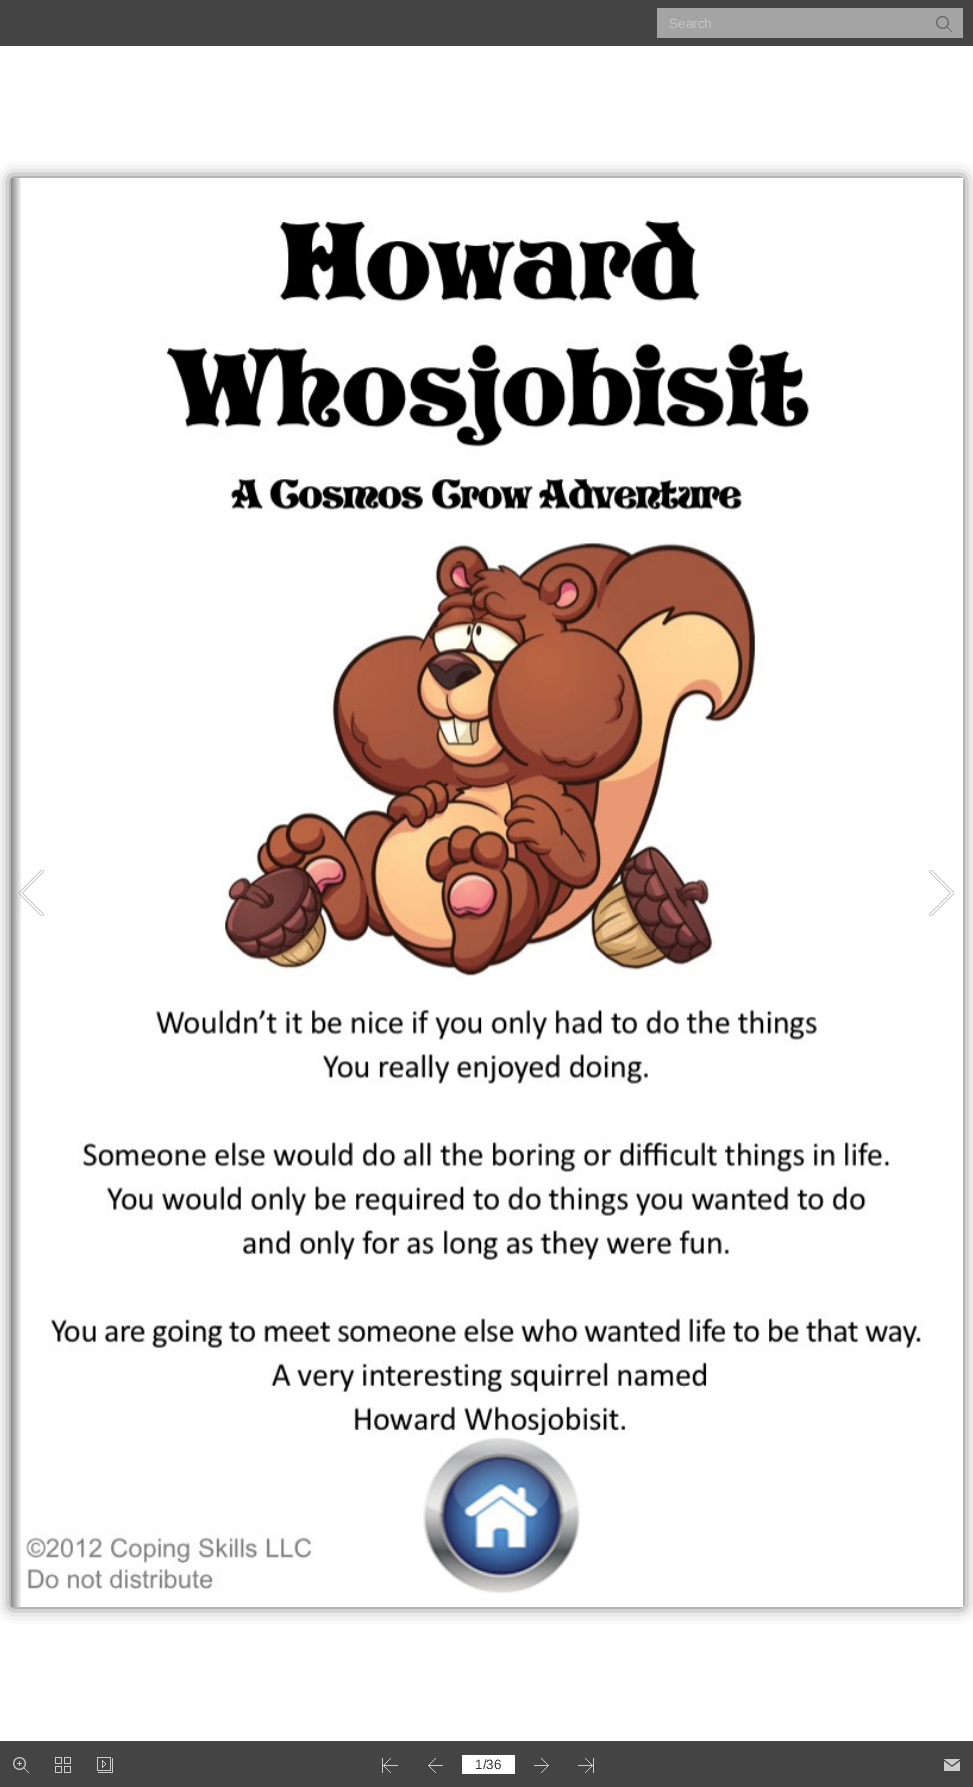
%!PS-Adobe-3.0
%%BoundingBox: 0 0 973 1787
%%LanguageLevel: 3
%%Pages: 1
%%EndComments
%%BeginProlog
/m { moveto } bind def
/l { lineto } bind def
/h { closepath } bind def
/q { gsave } bind def
/Q { grestore } bind def
/fn { [ exch dup neg 0 0 3 -1 roll 0 0 ] selectfont } def
/tx { moveto show } def
/bx { rectfill } def
/al { dup .setfillconstantalpha .setstrokeconstantalpha } def
/rr { 5 dict begin { /r /h /w /y /x } { exch def } forall
  x r add y moveto x w add y 2 copy h add r arct x w add y h add x 1 index r arct
  x y h add x y r arct x y 2 copy exch w add exch r arct closepath end } def
/sh { 12 dict begin { /a /b /q /h /w /y /x } { exch def } forall gsave /was 0 def
  9 -2 -9 { dup b mul 4 div /e exch def 1 sub .425 mul 2.718 exch exp 1 add a .99 .min exch div /now exch def
    1 1 now sub 1 was sub div sub al /was now def
    w h .min e 2 mul add 0 gt { x e sub y e sub w e 2 mul add h e 2 mul add
      q e add b .6 mul add w h .min 2 div e add .min 0 .max rr fill } if } for grestore end } def
/im { 5 dict begin { /h /w /y /x /name } { exch def } forall
  gsave x y translate w h scale
  w h 8 [w 0 0 h 0 0] name (r) file false 3 colorimage grestore end } def
%%EndProlog
%%BeginSetup
<< /PageSize [973 1787] /PageUsesTransparency true >> setpagedevice
%%EndSetup
%%Page: 1 1
0 .pushpdf14devicefilter
0 1787 translate 1 -1 scale
4 setmiterlimit
1 setgray
0 0 973 1787 bx
0.267 setgray
0 0 973 46 bx
0.643 setgray
657 8 306 30 bx
/LiberationSans-Regular 13.5 fn
0.769 setgray
(Search) 669 28 tx
(image0.raw) 936 16 16 16 im
0.157 setgray
11 178 952 1429 0 7.5 0.7 sh
q 11 178 m 22 178 l 22 1607 l 11 1607 l h clip newpath
<< /ShadingType 2 /ColorSpace /DeviceRGB /Coords [11 893 22 893] /Extend [true true] /Function << /FunctionType 2 /Domain [0 1] /C0 [0.541 0.541 0.541] /C1 [1 1 1] /N 1 >> >> shfill Q
1 setgray
22 178 941 1429 bx
(image1.raw) 22 216 902 1374 im
(image2.raw) 423 1435 157 159 im
(image3.raw) 19 870 25 46 im
(image4.raw) 929 870 25 46 im
0.267 setgray
0 1741 973 46 bx
(image5.raw) 13 1757 16 16 im
(image6.raw) 55 1757 16 16 im
(image7.raw) 97 1757 16 16 im
(image8.raw) 382 1758 16 15 im
(image9.raw) 428 1758 15 15 im
1 setgray
462 1755 53 19 bx
0.2 setgray
(1/36) 475 1769 tx
(image10.raw) 534 1758 15 15 im
(image11.raw) 578 1758 16 15 im
(image12.raw) 944 1759 16 12 im
.poppdf14devicefilter showpage
%%EOF
